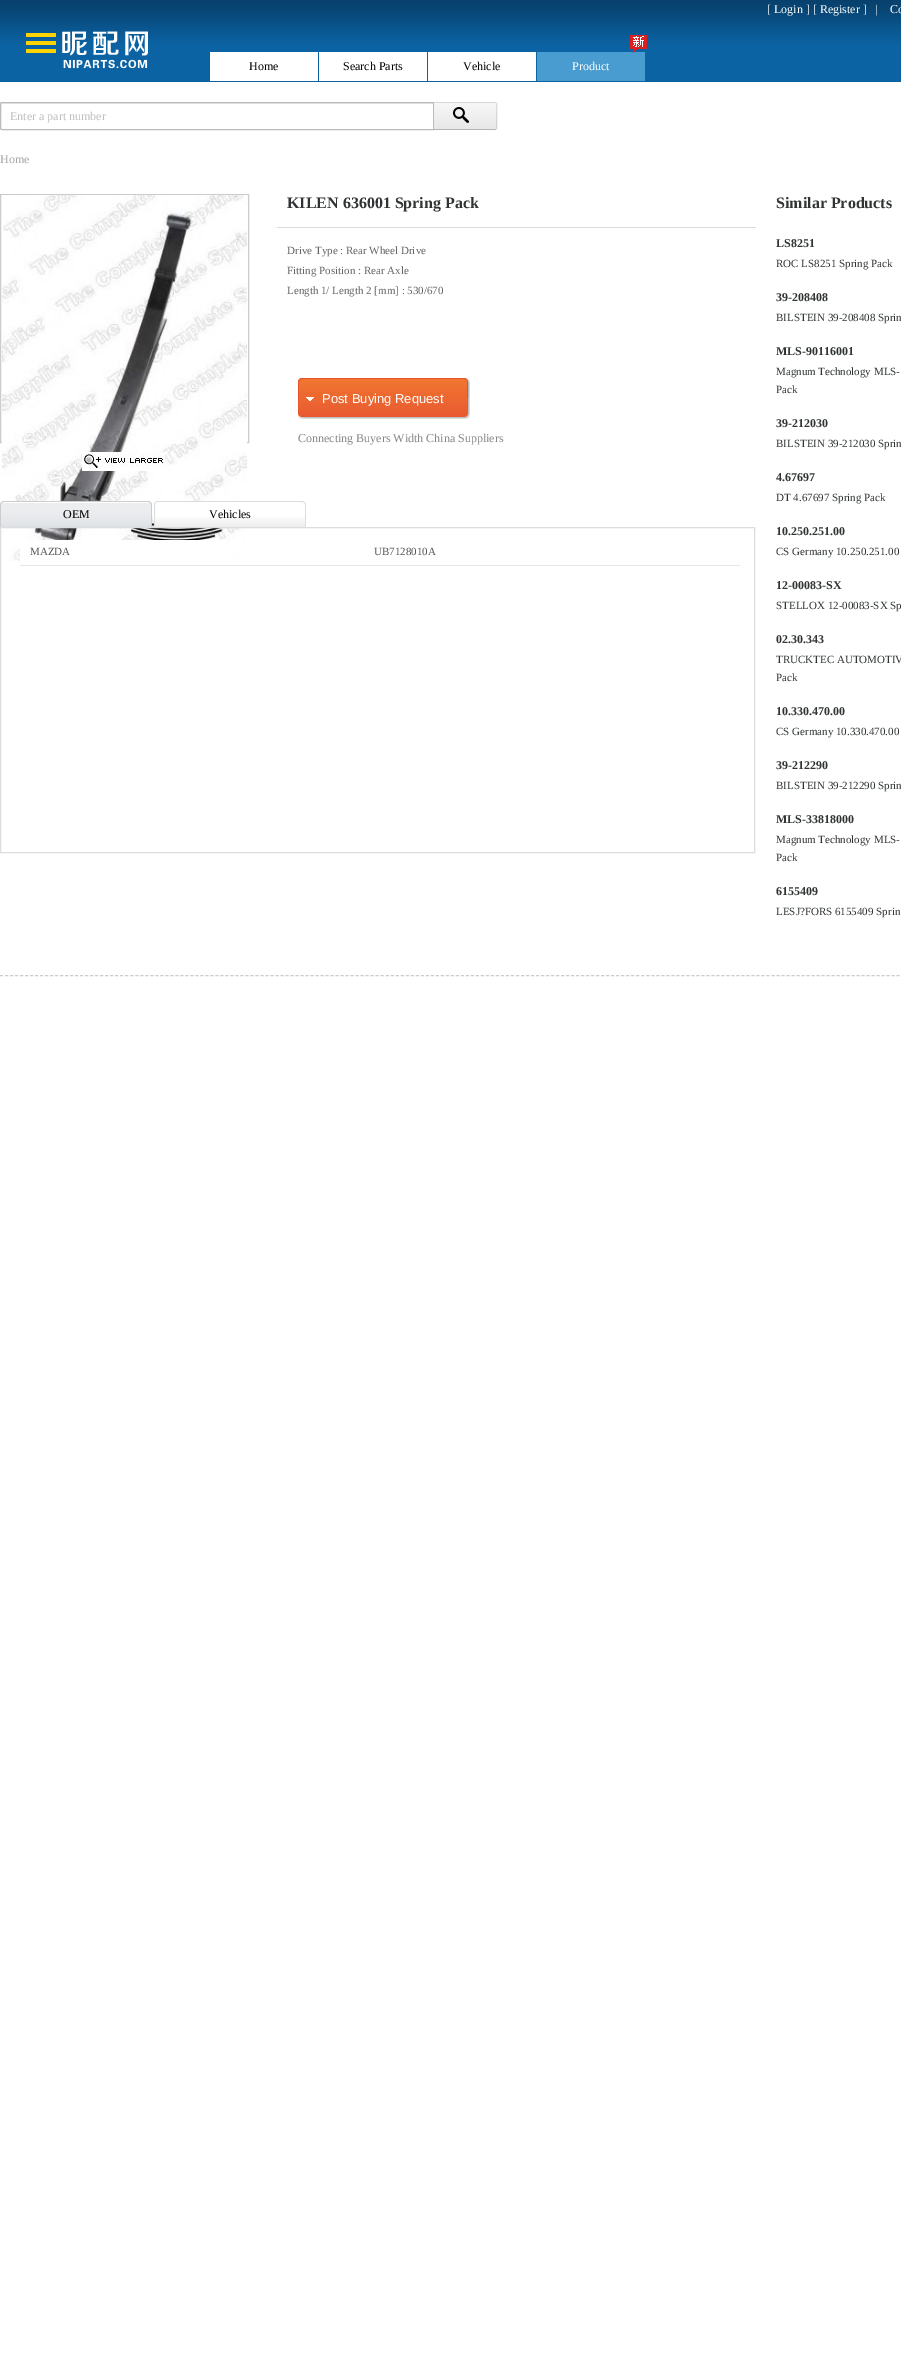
%!PS-Adobe-3.0
%%BoundingBox: 0 0 901 2378
%%LanguageLevel: 3
%%Pages: 1
%%EndComments
%%BeginProlog
/m { moveto } bind def
/l { lineto } bind def
/c { curveto } bind def
/h { closepath } bind def
/f { fill } bind def
/S { stroke } bind def
/fn { [ exch dup neg 0 0 3 -1 roll 0 0 ] selectfont } def
/tx { moveto show } def
/bx { rectfill } def
/im { 5 dict begin { /h /w /y /x /name } { exch def } forall
  gsave x y translate w h scale
  w h 8 [w 0 0 h 0 0] name (r) file false 3 colorimage grestore end } def
%%EndProlog
%%BeginSetup
<< /PageSize [901 2378] >> setpagedevice
%%EndSetup
%%Page: 1 1
0 2378 translate 1 -1 scale
4 setmiterlimit
1 setgray
0 0 901 2378 bx
(image0.raw) 0 0 901 82 im
(image1.raw) 26 31 122 38 im
/LiberationSerif-Regular 12 fn
([ Login ] [ Register ]) 767 13 tx
(|) 875 13 tx
(Co) 890 13 tx
0.286 0.612 0.816 setrgbcolor
537 52 108 29 bx
(image2.raw) 630 35 17 18 im
1 setgray
210 52 108 29 bx
0 setgray
(Home) 249 70 tx
1 setgray
319 52 108 29 bx
0 setgray
(Search Parts) 343 70 tx
1 setgray
428 52 108 29 bx
0 setgray
(Vehicle) 463 70 tx
1 setgray
(Product) 572 70 tx
0.945 setgray
426 102 m 496 102 l 497 102 498 103 498 104 c 498 128 l 498 129 497 130 496 130 c 426 130 l h f
1 setgray
2 102 m 434 102 l 434 130 l 2 130 l 1 130 0 129 0 128 c 0 104 l 0 103 1 102 2 102 c h f
0.925 setgray
2 104 m 433 104 l 433 103 l 2 103 l 1 104 l 1 105 l h f
0.733 0.733 0.729 setrgbcolor
2 102.5 m 433.5 102.5 l 433.5 129.5 l 2 129.5 l 1 129.5 0.5 129 0.5 128 c 0.5 104 l 0.5 103 1 102.5 2 102.5 c h S
0.745 setgray
(Enter a part number) 10 120 tx
(image3.raw) 434 102 63 28 im
0.647 setgray
(Home) 0 163 tx
0.8 setgray
0.5 194.5 248 248 rectstroke
(image4.raw) 2 195 245 366 im
0.859 setgray
277 227 479 1 bx
/LiberationSerif-Bold 16 fn
0.188 0.204 0.208 setrgbcolor
(KILEN 636001 Spring Pack) 287 208 tx
/LiberationSerif-Regular 11 fn
0.4 setgray
(Drive Type : Rear Wheel Drive) 287 254 tx
(Fitting Position : Rear Axle) 287 274 tx
(Length 1/ Length 2 [mm] : 530/670) 287 294 tx
(image5.raw) 298 378 172 41 im
/LiberationSans-Regular 13 fn
1 setgray
(Post Buying Request) 322 403 tx
/LiberationSerif-Regular 12 fn
0.525 setgray
(Connecting Buyers Width China Suppliers) 298 442 tx
(image6.raw) 82 452 83 19 im
1 setgray
4 501 m 148 501 l 150 501 152 503 152 505 c 152 527 l 0 527 l 0 505 l 0 503 2 501 4 501 c h f
(image7.raw) 0 503 152 24 im
0.8 setgray
4 501 m 148 501 l 150 501 152 503 152 505 c 152 527 l 0 527 l 0 505 l 0 503 2 501 4 501 c h 4 502 m 148 502 l 150 502 151 503 151 505 c 151 527 l 1 527 l 1 505 l 1 503 2 502 4 502 c h eofill
0 setgray
(OEM) 63 518 tx
1 setgray
158 502 m 302 502 l 303.5 502 305 503.5 305 505 c 305 527 l 155 527 l 155 505 l 155 503.5 156.5 502 158 502 c h f
(image8.raw) 155 517 150 10 im
0.867 setgray
158 501 m 302 501 l 304 501 306 503 306 505 c 306 527 l 154 527 l 154 505 l 154 503 156 501 158 501 c h 158 502 m 302 502 l 304 502 305 503 305 505 c 305 527 l 155 527 l 155 505 l 155 503 156 502 158 502 c h eofill
0 setgray
(Vehicles) 209 518 tx
0.867 setgray
0.5 527.5 754 325 rectstroke
0.902 setgray
20 565 720 1 bx
1 setgray
20 540 205 21 bx
/LiberationSerif-Regular 11 fn
0.333 setgray
(MAZDA) 30 555 tx
(UB7128010A) 374 555 tx
/LiberationSerif-Bold 16 fn
0.188 0.204 0.208 setrgbcolor
(Similar Products) 776 208 tx
/LiberationSerif-Bold 12 fn
(LS8251) 776 247 tx
/LiberationSerif-Regular 11 fn
(ROC LS8251 Spring Pack) 776 267 tx
/LiberationSerif-Bold 12 fn
(39-208408) 776 301 tx
/LiberationSerif-Regular 11 fn
(BILSTEIN 39-208408 Sprin) 776 321 tx
/LiberationSerif-Bold 12 fn
(MLS-90116001) 776 355 tx
/LiberationSerif-Regular 11 fn
(Magnum Technology MLS-) 776 375 tx
(Pack) 776 393 tx
/LiberationSerif-Bold 12 fn
(39-212030) 776 427 tx
/LiberationSerif-Regular 11 fn
(BILSTEIN 39-212030 Sprin) 776 447 tx
/LiberationSerif-Bold 12 fn
(4.67697) 776 481 tx
/LiberationSerif-Regular 11 fn
(DT 4.67697 Spring Pack) 776 501 tx
/LiberationSerif-Bold 12 fn
(10.250.251.00) 776 535 tx
/LiberationSerif-Regular 11 fn
(CS Germany 10.250.251.00) 776 555 tx
/LiberationSerif-Bold 12 fn
(12-00083-SX) 776 589 tx
/LiberationSerif-Regular 11 fn
(STELLOX 12-00083-SX Sp) 776 609 tx
/LiberationSerif-Bold 12 fn
(02.30.343) 776 643 tx
/LiberationSerif-Regular 11 fn
(TRUCKTEC AUTOMOTIV) 776 663 tx
(Pack) 776 681 tx
/LiberationSerif-Bold 12 fn
(10.330.470.00) 776 715 tx
/LiberationSerif-Regular 11 fn
(CS Germany 10.330.470.00) 776 735 tx
/LiberationSerif-Bold 12 fn
(39-212290) 776 769 tx
/LiberationSerif-Regular 11 fn
(BILSTEIN 39-212290 Sprin) 776 789 tx
/LiberationSerif-Bold 12 fn
(MLS-33818000) 776 823 tx
/LiberationSerif-Regular 11 fn
(Magnum Technology MLS-) 776 843 tx
(Pack) 776 861 tx
/LiberationSerif-Bold 12 fn
(6155409) 776 895 tx
/LiberationSerif-Regular 11 fn
(LESJ?FORS 6155409 Sprin) 776 915 tx
0.8 setgray
[3 2.01] 0 setdash
0 975.5 m 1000 975.5 l S
showpage
%%EOF
